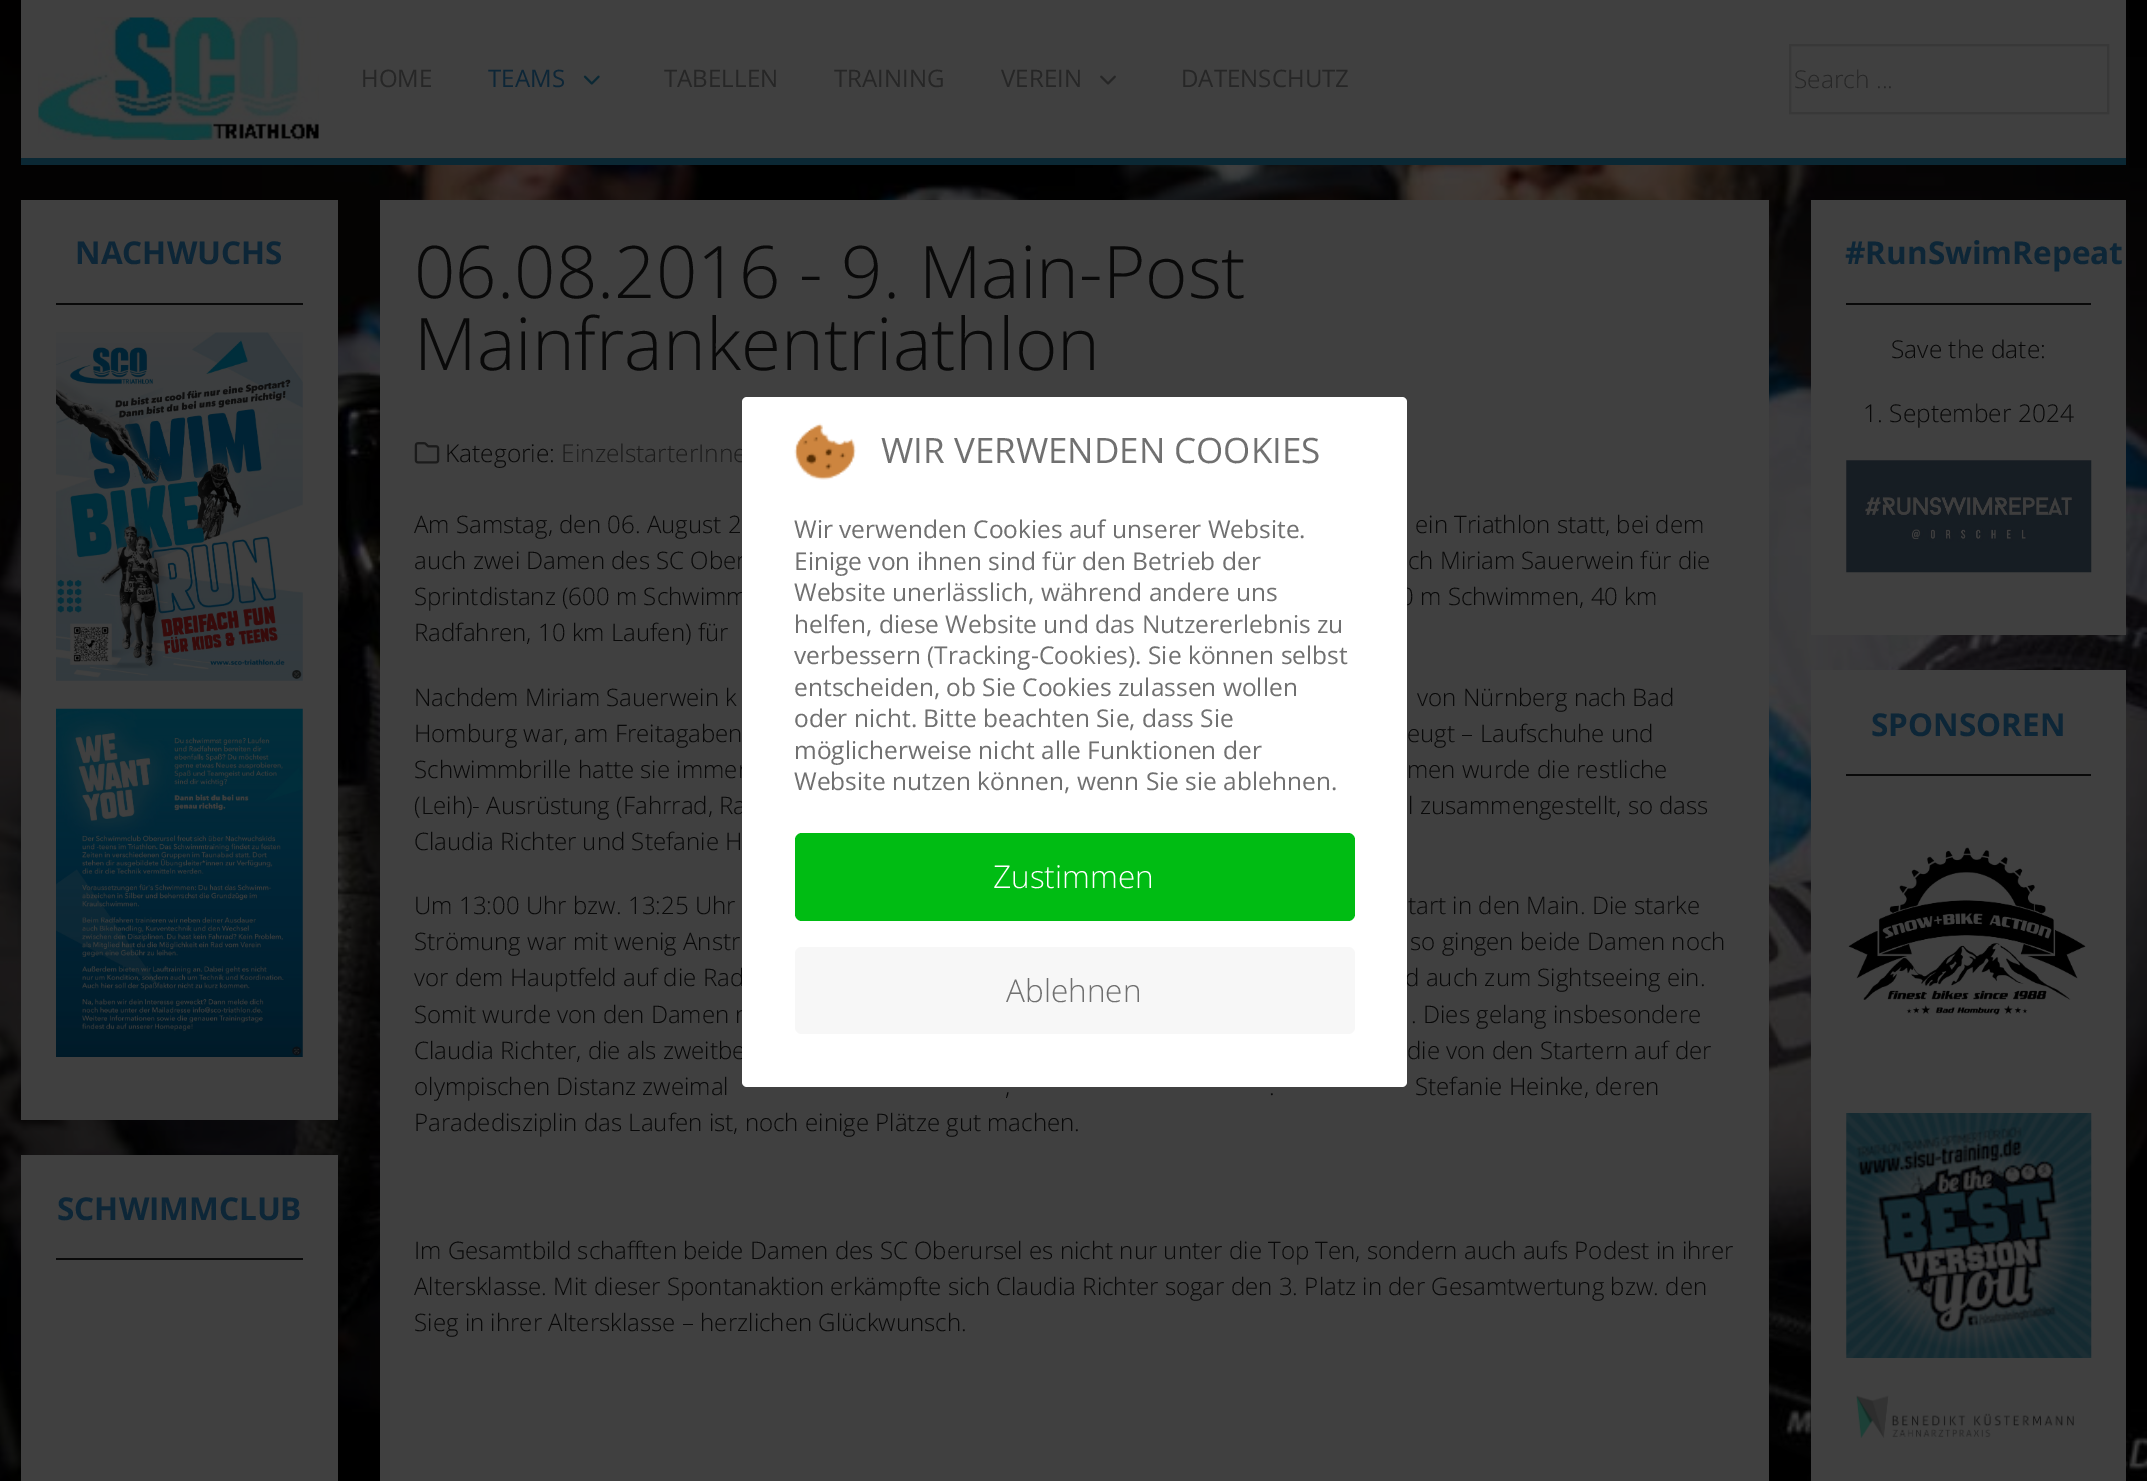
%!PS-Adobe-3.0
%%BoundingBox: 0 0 2147 1481
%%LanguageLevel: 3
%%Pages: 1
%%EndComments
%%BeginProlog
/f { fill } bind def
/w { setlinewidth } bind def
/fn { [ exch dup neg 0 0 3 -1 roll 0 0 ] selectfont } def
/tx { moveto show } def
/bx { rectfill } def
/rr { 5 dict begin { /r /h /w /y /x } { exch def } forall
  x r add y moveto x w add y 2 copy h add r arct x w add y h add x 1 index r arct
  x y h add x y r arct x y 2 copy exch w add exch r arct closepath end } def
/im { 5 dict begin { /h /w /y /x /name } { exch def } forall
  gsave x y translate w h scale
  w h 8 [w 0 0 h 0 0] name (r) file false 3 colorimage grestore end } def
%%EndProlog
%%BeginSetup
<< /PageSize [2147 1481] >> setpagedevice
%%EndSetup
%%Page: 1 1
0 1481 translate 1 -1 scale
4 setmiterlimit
1 setgray
0 0 2147 1481 bx
(image0.raw) 0 0 2147 1481 im
0.251 setgray
21 0 2105 158 bx
0.043 0.157 0.204 setrgbcolor
21 158 2105 7 bx
(image1.raw) 38 17 281 123 im
/OpenSans-Regular 24.08 fn
0.149 setgray
(HOME) 361 87 tx
0.051 0.149 0.216 setrgbcolor
(TEAMS) 488 87 tx
(image2.raw) 583 75 17 10 im
0.149 setgray
(TABELLEN) 664 87 tx
(TRAINING) 834 87 tx
(VEREIN) 1001 87 tx
(image3.raw) 1100 75 16 10 im
(DATENSCHUTZ) 1181 87 tx
0.22 setgray
2 w
1790 45 318 68 rectstroke
/OpenSans-Light 24.5 fn
0.149 setgray
(Search ...) 1794 88 tx
0.251 setgray
21 200 317 920 bx
/OpenSans-Bold 31.5 fn
0.051 0.149 0.216 setrgbcolor
(NACHWUCHS) 75 264 tx
0.035 setgray
56 303 247 2 bx
(image4.raw) 56 332 247 349 im
(image5.raw) 56 708 247 349 im
0.251 setgray
21 1155 317 326 bx
0.051 0.149 0.216 setrgbcolor
(SCHWIMMCLUB) 57 1220 tx
0.035 setgray
56 1258 247 2 bx
0.251 setgray
380 200 1389 1281 bx
/OpenSans-Light 72.6 fn
0.035 setgray
(06.08.2016 - 9. Main-Post) 414 298 tx
(Mainfrankentriathlon) 414 370 tx
(image6.raw) 414 442 26 22 im
/OpenSans-Light 24.5 fn
(Kategorie:) 445 462 tx
0.106 setgray
(EinzelstarterInne) 561 462 tx
/OpenSans-Light 24.08 fn
0.035 setgray
(Am Samstag, den 06. August 2) 414 533 tx
(ein Triathlon statt, bei dem) 1415 533 tx
(auch zwei Damen des SC Ober) 414 569 tx
(ch Miriam Sauerwein für die) 1408 569 tx
(Sprintdistanz \(600 m Schwimm) 414 605 tx
(0 m Schwimmen, 40 km) 1400 605 tx
(Radfahren, 10 km Laufen\) für) 414 641 tx
(Nachdem Miriam Sauerwein k) 414 706 tx
(von Nürnberg nach Bad) 1417 706 tx
(Homburg war, am Freitagaben) 414 742 tx
(eugt – Laufschuhe und) 1407 742 tx
(Schwimmbrille hatte sie immer) 414 778 tx
(men wurde die restliche) 1407 778 tx
(\(Leih\)- Ausrüstung \(Fahrrad, Ra) 414 814 tx
(l zusammengestellt, so dass) 1408 814 tx
(Claudia Richter und Stefanie H) 414 850 tx
(Um 13:00 Uhr bzw. 13:25 Uhr) 414 914 tx
(tart in den Main. Die starke) 1408 914 tx
(Strömung war mit wenig Anstr) 414 950 tx
(so gingen beide Damen noch) 1410 950 tx
(vor dem Hauptfeld auf die Rad) 414 986 tx
(d auch zum Sightseeing ein.) 1405 986 tx
(Somit wurde von den Damen n) 414 1023 tx
(. Dies gelang insbesondere) 1411 1023 tx
(Claudia Richter, die als zweitbe) 414 1059 tx
(die von den Startern auf der) 1407 1059 tx
(olympischen Distanz zweimal) 414 1095 tx
(,) 1005 1095 tx
(.) 1269 1095 tx
(Stefanie Heinke, deren) 1415 1095 tx
(Paradedisziplin das Laufen ist, noch einige Plätze gut machen.) 414 1131 tx
(Im Gesamtbild schafften beide Damen des SC Oberursel es nicht nur unter die Top Ten, sondern auch aufs Podest in ihrer) 414 1259 tx
(Altersklasse. Mit dieser Spontanaktion erkämpfte sich Claudia Richter sogar den 3. Platz in der Gesamtwertung bzw. den) 414 1295 tx
(Sieg in ihrer Altersklasse – herzlichen Glückwunsch.) 414 1331 tx
0.251 setgray
1811 200 315 435 bx
/OpenSans-Bold 31.5 fn
0.051 0.149 0.216 setrgbcolor
(#RunSwimRepeat) 1845 264 tx
0.035 setgray
1846 303 245 2 bx
/OpenSans-Light 24.5 fn
(Save the date:) 1891 358 tx
(1. September 2024) 1863 422 tx
(image7.raw) 1846 460 246 113 im
0.251 setgray
1811 670 315 811 bx
/OpenSans-Bold 31.5 fn
0.051 0.149 0.216 setrgbcolor
(SPONSOREN) 1871 736 tx
0.035 setgray
1846 774 245 2 bx
(image8.raw) 1848 847 238 168 im
(image9.raw) 1846 1113 246 245 im
(image10.raw) 1856 1395 218 43 im
1 setgray
742 397 665 690 5 rr f
(image11.raw) 794 423 62 57 im
/OpenSans-Regular 35 fn
0.439 setgray
(WIR VERWENDEN COOKIES) 881 463 tx
/OpenSans-Regular 24.5 fn
(Wir verwenden Cookies auf unserer Website.) 794 538 tx
(Einige von ihnen sind für den Betrieb der) 794 570 tx
(Website unerlässlich, während andere uns) 794 601 tx
(helfen, diese Website und das Nutzererlebnis zu) 794 633 tx
(verbessern \(Tracking-Cookies\). Sie können selbst) 794 664 tx
(entscheiden, ob Sie Cookies zulassen wollen) 794 696 tx
(oder nicht. Bitte beachten Sie, dass Sie) 794 727 tx
(möglicherweise nicht alle Funktionen der) 794 759 tx
(Website nutzen können, wenn Sie sie ablehnen.) 794 790 tx
0 0.737 0.075 setrgbcolor
795 833 560 88 7 rr f
/OpenSans-Light 31.5 fn
1 setgray
(Zustimmen) 993 888 tx
0.969 setgray
795 947 560 87 7 rr f
0.439 setgray
(Ablehnen) 1006 1002 tx
showpage
%%EOF
